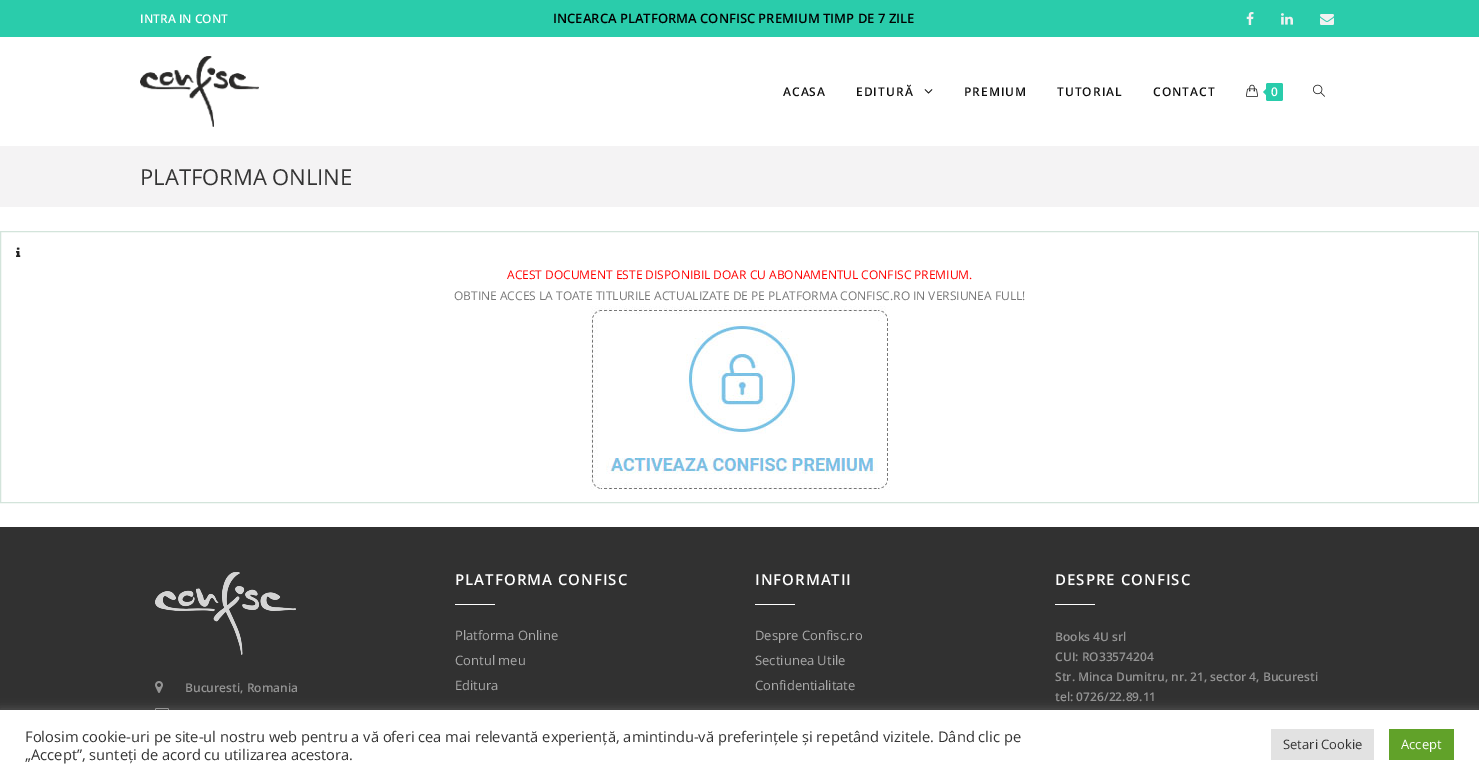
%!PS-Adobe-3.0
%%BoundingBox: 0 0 1479 779
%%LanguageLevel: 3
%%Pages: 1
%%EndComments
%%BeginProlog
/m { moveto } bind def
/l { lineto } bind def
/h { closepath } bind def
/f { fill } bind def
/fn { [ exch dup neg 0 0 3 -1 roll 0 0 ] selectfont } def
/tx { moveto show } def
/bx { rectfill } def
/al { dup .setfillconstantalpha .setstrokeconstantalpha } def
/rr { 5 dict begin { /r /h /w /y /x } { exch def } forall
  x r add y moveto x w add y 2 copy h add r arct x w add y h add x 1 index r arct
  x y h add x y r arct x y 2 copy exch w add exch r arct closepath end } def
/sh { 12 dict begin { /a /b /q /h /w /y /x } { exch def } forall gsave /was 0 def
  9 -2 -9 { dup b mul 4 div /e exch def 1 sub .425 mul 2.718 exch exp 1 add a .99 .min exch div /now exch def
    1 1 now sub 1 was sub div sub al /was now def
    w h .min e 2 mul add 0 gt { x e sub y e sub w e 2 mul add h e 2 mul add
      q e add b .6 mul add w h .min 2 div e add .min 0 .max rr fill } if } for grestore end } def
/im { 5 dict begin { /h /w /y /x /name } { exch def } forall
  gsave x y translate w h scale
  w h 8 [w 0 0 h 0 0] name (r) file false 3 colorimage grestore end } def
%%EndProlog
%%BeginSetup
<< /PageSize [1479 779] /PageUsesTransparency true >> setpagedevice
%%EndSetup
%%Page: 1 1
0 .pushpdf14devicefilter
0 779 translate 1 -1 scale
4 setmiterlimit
1 setgray
0 0 1479 779 bx
0.165 0.8 0.671 setrgbcolor
0 0 1479 37 bx
/OpenSans-SemiBold 12 fn
1 setgray
(INTRA IN CONT) 140 23 tx
/OpenSans-SemiBold 13 fn
0 setgray
(INCEARCA PLATFORMA CONFISC PREMIUM TIMP DE 7 ZILE) 553 23 tx
(image0.raw) 1246 12 8 13 im
(image1.raw) 1281 13 12 12 im
(image2.raw) 1320 14 14 11 im
(image3.raw) 140 56 119 71 im
/OpenSans-SemiBold 12 fn
0.063 setgray
783 96 m 1 0 (ACASA) ashow
856 96 m 1 0 (EDITURĂ) ashow
(image4.raw) 924 89 9 5 im
964 96 m 1 0 (PREMIUM) ashow
1057 96 m 1 0 (TUTORIAL) ashow
1153 96 m 1 0 (CONTACT) ashow
(image5.raw) 1246 84 12 13 im
0.161 0.8 0.671 setrgbcolor
1266 83 17 18 2 rr f
1268 87 m 1268 97 l 1263 92 l h f
1 setgray
(0) 1271 96 tx
(image6.raw) 1313 84 12 13 im
0.957 0.953 0.957 setrgbcolor
0 146 1479 61 bx
/OpenSans-Regular 22 fn
0.2 setgray
(PLATFORMA ONLINE) 140 185 tx
0.827 0.894 0.859 setrgbcolor
0.5 231.5 1478 271 rectstroke
(image7.raw) 16 247 5 10 im
/OpenSans-Regular 12 fn
1 0 0 setrgbcolor
(ACEST DOCUMENT ESTE DISPONIBIL DOAR CU ABONAMENTUL CONFISC PREMIUM.) 507 279 tx
0.467 setgray
(OBTINE ACCES LA TOATE TITLURILE ACTUALIZATE DE PE PLATFORMA CONFISC.RO IN VERSIUNEA FULL!) 454 300 tx
(image8.raw) 590 306 300 184 im
0.192 setgray
0 527 1479 183 bx
(image9.raw) 155 572 141 83 im
(image10.raw) 155 681 8 12 im
/OpenSans-SemiBold 12 fn
0.58 setgray
(Bucuresti, Romania) 185 692 tx
(image11.raw) 155 708 14 2 im
/OpenSans-SemiBold 15 fn
1 setgray
455 585 m 1 0 (PLATFORMA CONFISC) ashow
455 604 40 1 bx
/OpenSans-Regular 13 fn
0.667 setgray
(Platforma Online) 455 640 tx
(Contul meu) 455 665 tx
(Editura) 455 690 tx
/OpenSans-SemiBold 15 fn
1 setgray
755 585 m 1 0 (INFORMATII) ashow
755 604 40 1 bx
/OpenSans-Regular 13 fn
0.667 setgray
(Despre Confisc.ro) 755 640 tx
(Sectiunea Utile) 755 665 tx
(Confidentialitate) 755 690 tx
/OpenSans-SemiBold 15 fn
1 setgray
1055 585 m 1 0 (DESPRE CONFISC) ashow
1055 604 40 1 bx
/OpenSans-SemiBold 12 fn
0.58 setgray
(Books 4U srl) 1055 641 tx
(CUI: RO33574204) 1055 661 tx
(Str. Minca Dumitru, nr. 21, sector 4, Bucuresti) 1055 681 tx
(tel: 0726/22.89.11) 1055 701 tx
0.675 0.671 0.671 setrgbcolor
0 709 1479 69 0 5 0.3 sh
1 setgray
0 710 1479 69 bx
/OpenSans-Regular 14.67 fn
0.2 setgray
(Folosim cookie-uri pe site-ul nostru web pentru a vă oferi cea mai relevantă experiență, amintindu-vă preferințele și repetând vizitele. Dând clic pe) 25 742 tx
(„Accept”, sunteți de acord cu utilizarea acestora.) 25 760 tx
0.886 setgray
1271 729 103 31 bx
/OpenSans-Regular 13 fn
0.2 setgray
(Setari Cookie) 1283 749 tx
0.38 0.635 0.161 setrgbcolor
1389 729 65 31 bx
1 setgray
(Accept) 1401 749 tx
.poppdf14devicefilter showpage
%%EOF
